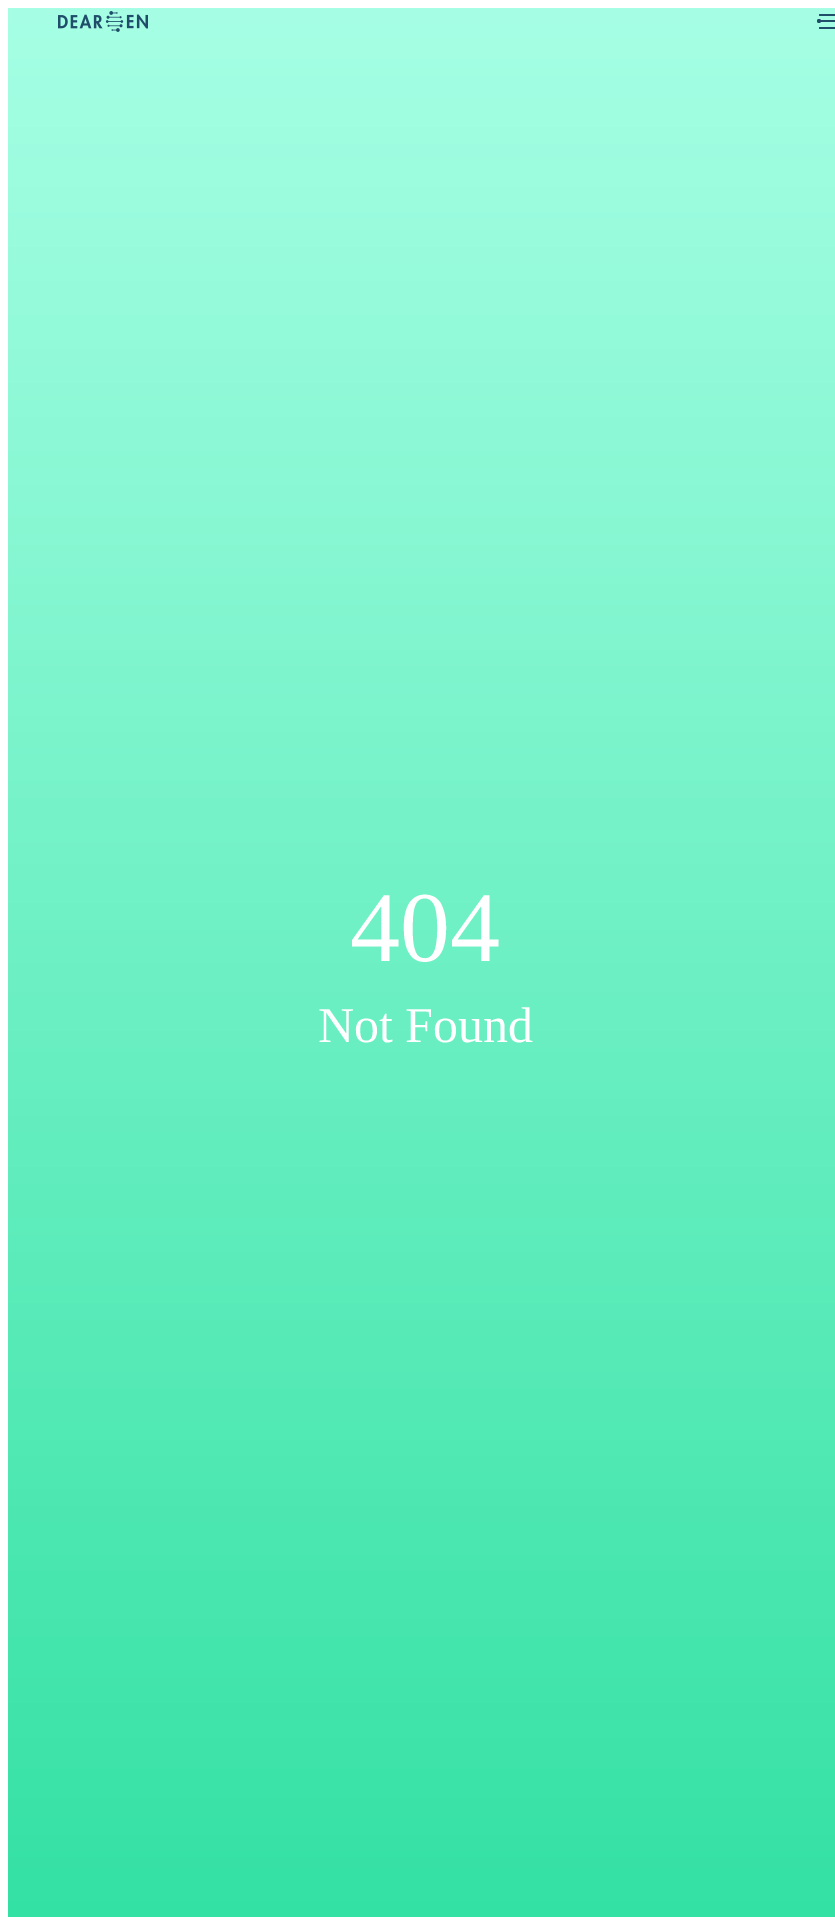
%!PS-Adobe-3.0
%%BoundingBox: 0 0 835 1917
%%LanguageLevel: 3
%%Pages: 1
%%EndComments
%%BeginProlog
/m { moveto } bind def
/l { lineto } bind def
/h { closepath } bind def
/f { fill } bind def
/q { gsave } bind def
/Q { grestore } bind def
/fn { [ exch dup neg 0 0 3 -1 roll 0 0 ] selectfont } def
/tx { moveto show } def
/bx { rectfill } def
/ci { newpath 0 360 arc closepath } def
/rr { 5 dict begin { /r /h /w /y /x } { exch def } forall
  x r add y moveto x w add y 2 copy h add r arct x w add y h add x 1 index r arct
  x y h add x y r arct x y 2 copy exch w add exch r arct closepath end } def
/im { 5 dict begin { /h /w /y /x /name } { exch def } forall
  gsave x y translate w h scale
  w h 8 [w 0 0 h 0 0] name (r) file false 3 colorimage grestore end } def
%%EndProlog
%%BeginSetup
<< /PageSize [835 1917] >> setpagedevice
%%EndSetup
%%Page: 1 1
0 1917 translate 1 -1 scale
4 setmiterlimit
1 setgray
0 0 835 1917 bx
q 8 8 m 835 8 l 835 1917 l 8 1917 l h clip newpath
<< /ShadingType 2 /ColorSpace /DeviceRGB /Coords [426 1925 426 8] /Extend [true true] /Function << /FunctionType 2 /Domain [0 1] /C0 [0.204 0.882 0.643] /C1 [0.651 1 0.894] /N 1 >> >> shfill Q
(image0.raw) 58 11 90 21 im
0.122 0.302 0.416 setrgbcolor
819 14 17 2 1 rr f
819 20 16 2 bx
819 21 2 ci f
819 27 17 2 1 rr f
/LiberationSerif-Regular 100 fn
1 setgray
(404) 350 961 tx
/LiberationSerif-Regular 50 fn
(Not Found) 318 1042 tx
showpage
%%EOF
